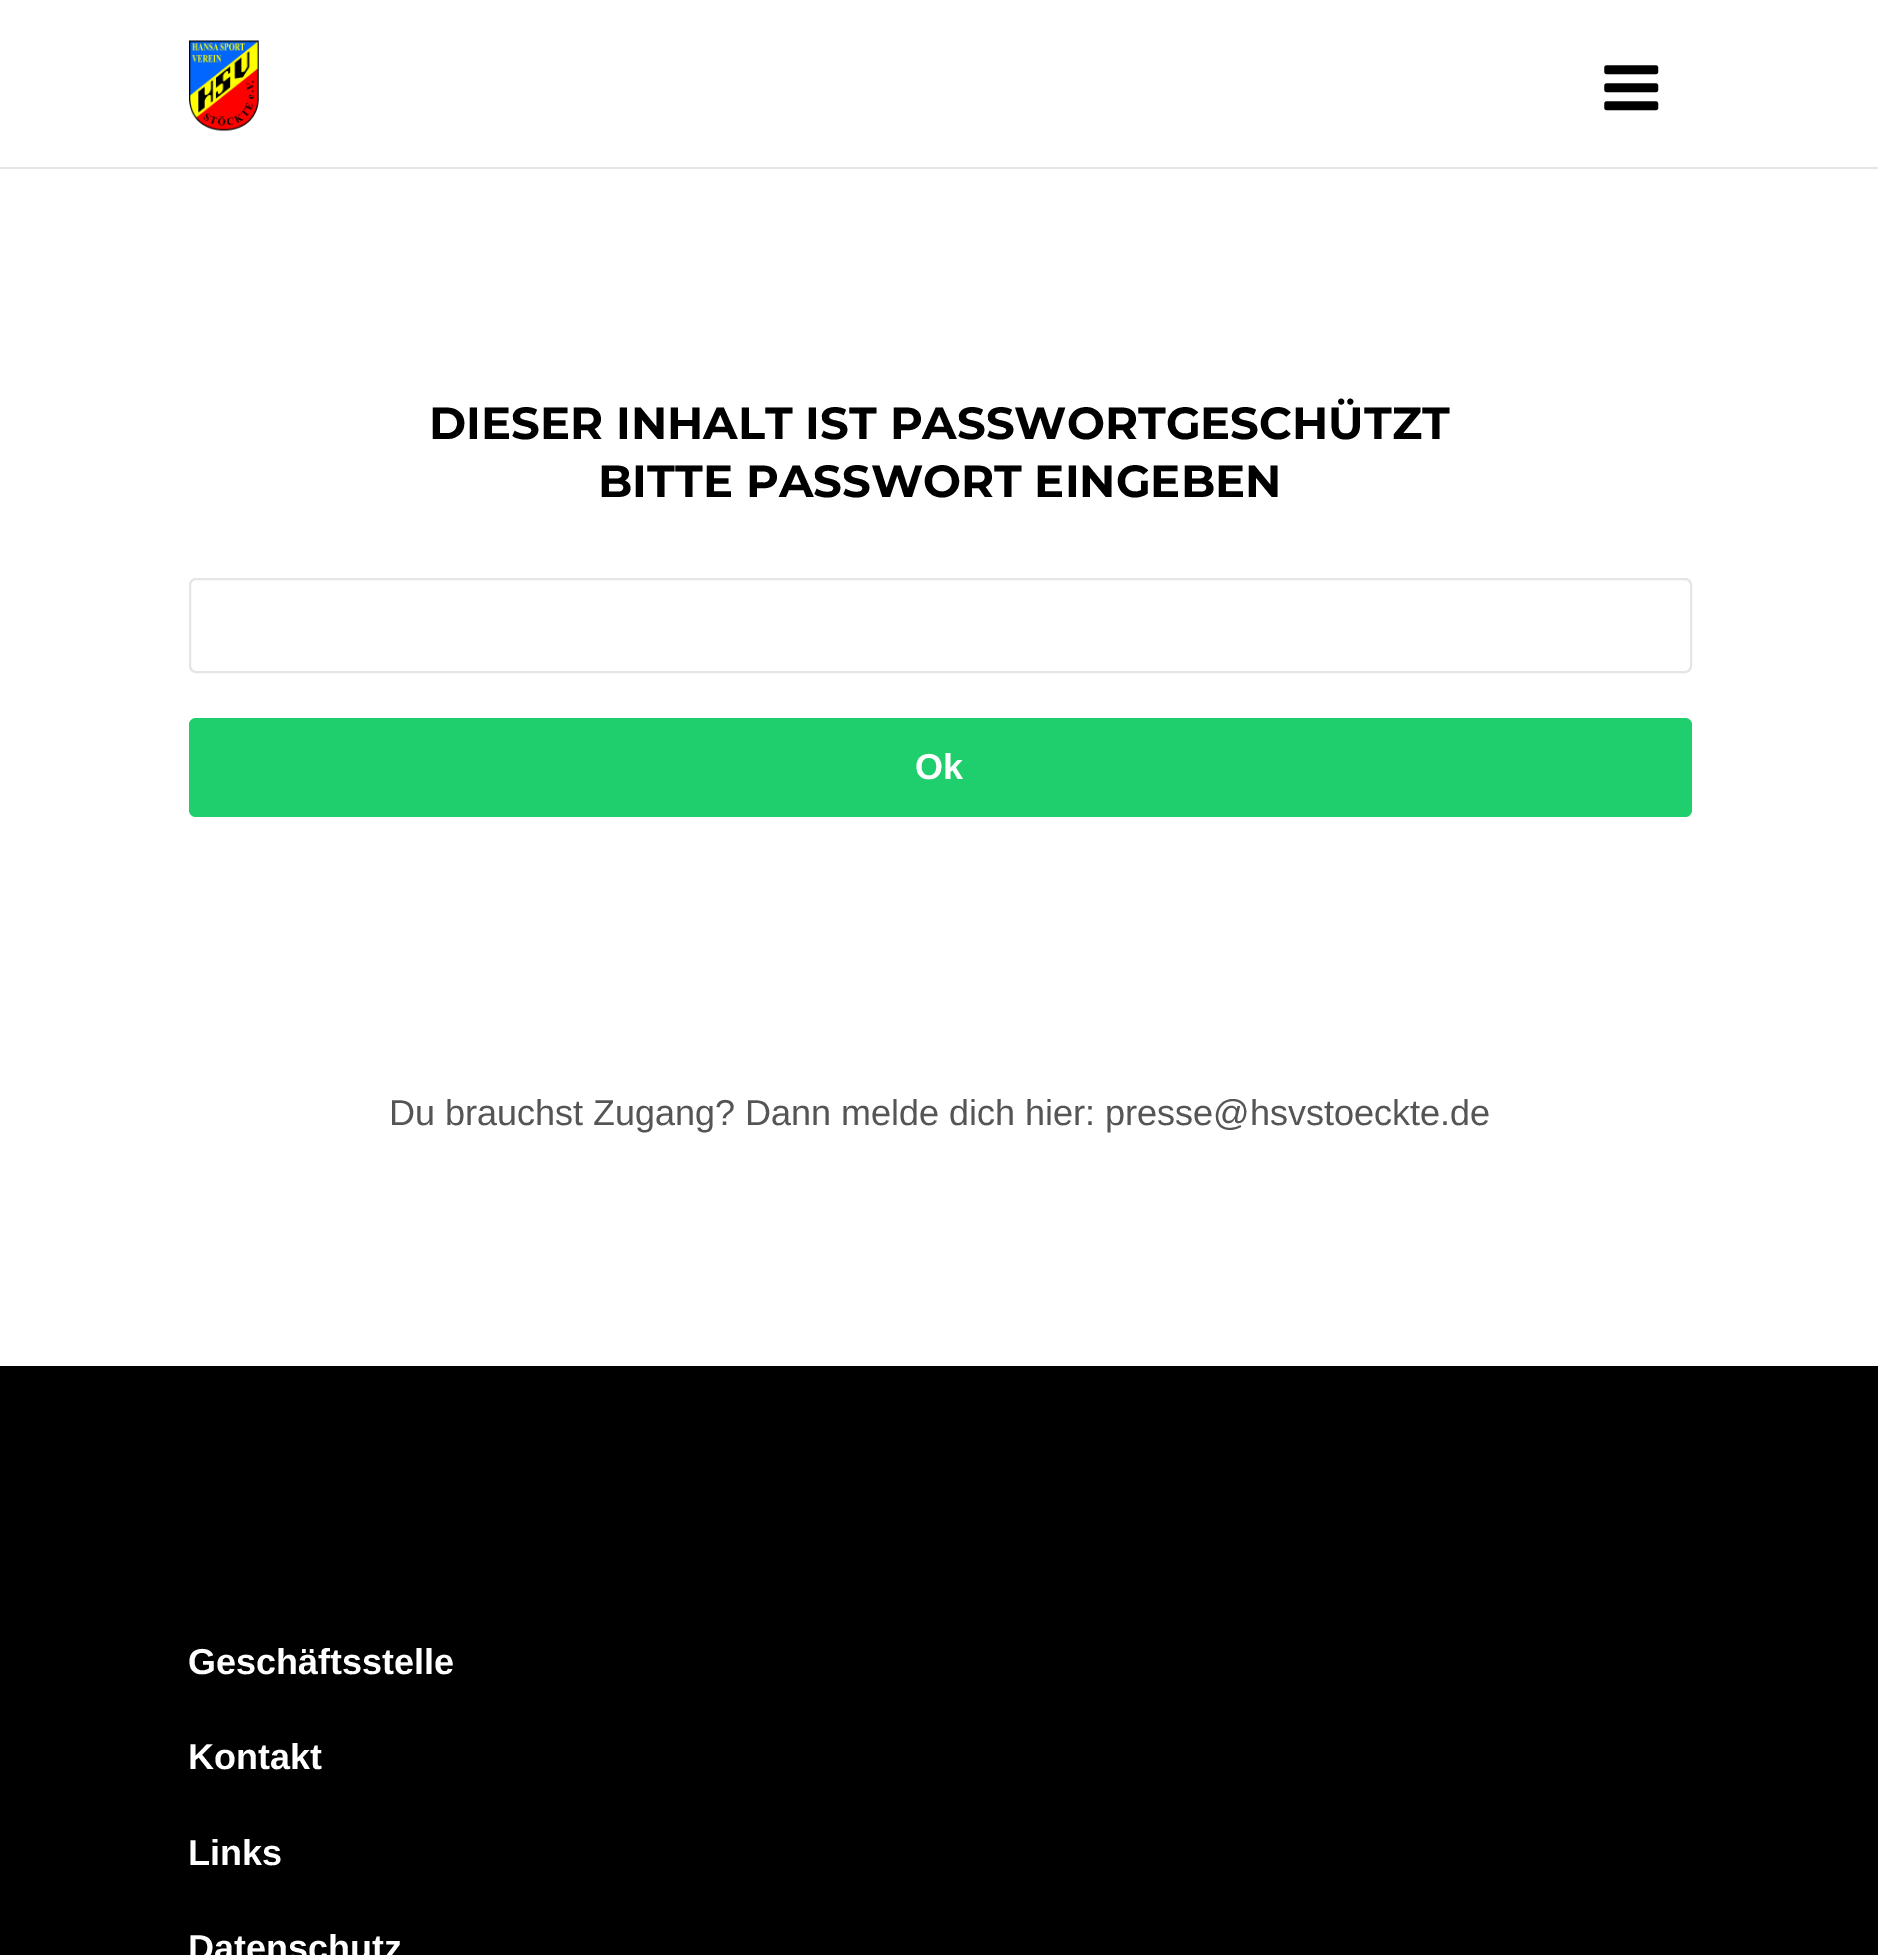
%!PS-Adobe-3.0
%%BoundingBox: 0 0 1878 1955
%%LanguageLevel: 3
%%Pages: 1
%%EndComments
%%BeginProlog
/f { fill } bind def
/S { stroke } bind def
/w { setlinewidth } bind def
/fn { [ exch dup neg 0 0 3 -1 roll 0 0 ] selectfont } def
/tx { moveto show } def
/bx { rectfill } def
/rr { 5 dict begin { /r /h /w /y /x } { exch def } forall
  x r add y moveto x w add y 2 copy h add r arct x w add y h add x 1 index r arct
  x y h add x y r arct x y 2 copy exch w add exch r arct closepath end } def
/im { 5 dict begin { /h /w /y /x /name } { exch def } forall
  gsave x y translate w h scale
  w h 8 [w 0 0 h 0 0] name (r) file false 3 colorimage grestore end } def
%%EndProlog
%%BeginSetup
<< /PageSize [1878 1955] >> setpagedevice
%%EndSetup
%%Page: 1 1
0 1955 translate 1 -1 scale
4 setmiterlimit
0 setgray
0 0 1878 1955 bx
1 setgray
0 0 1878 167 bx
0.898 setgray
0 167 1878 2 bx
(image0.raw) 189 40 70 91 im
(image1.raw) 1604 65 55 46 im
1 setgray
0 169 1878 1197 bx
/Montserrat-Bold 45 fn
0 setgray
(DIESER INHALT IST PASSWORTGESCHÜTZT) 429 439 tx
(BITTE PASSWORT EINGEBEN) 598 497 tx
0.898 setgray
2 w
190 579 1501 93 6 rr S
0.122 0.808 0.427 setrgbcolor
189 718 1503 99 7 rr f
/LiberationSans-Bold 36 fn
1 setgray
(Ok) 915 779 tx
/LiberationSans-Regular 36 fn
0.333 setgray
(Du brauchst Zugang? Dann melde dich hier: presse@hsvstoeckte.de) 389 1125 tx
/LiberationSans-Bold 36 fn
1 setgray
(Geschäftsstelle) 188 1674 tx
(Kontakt) 188 1769 tx
(Links) 188 1865 tx
(Datenschutz) 188 1960 tx
showpage
%%EOF
